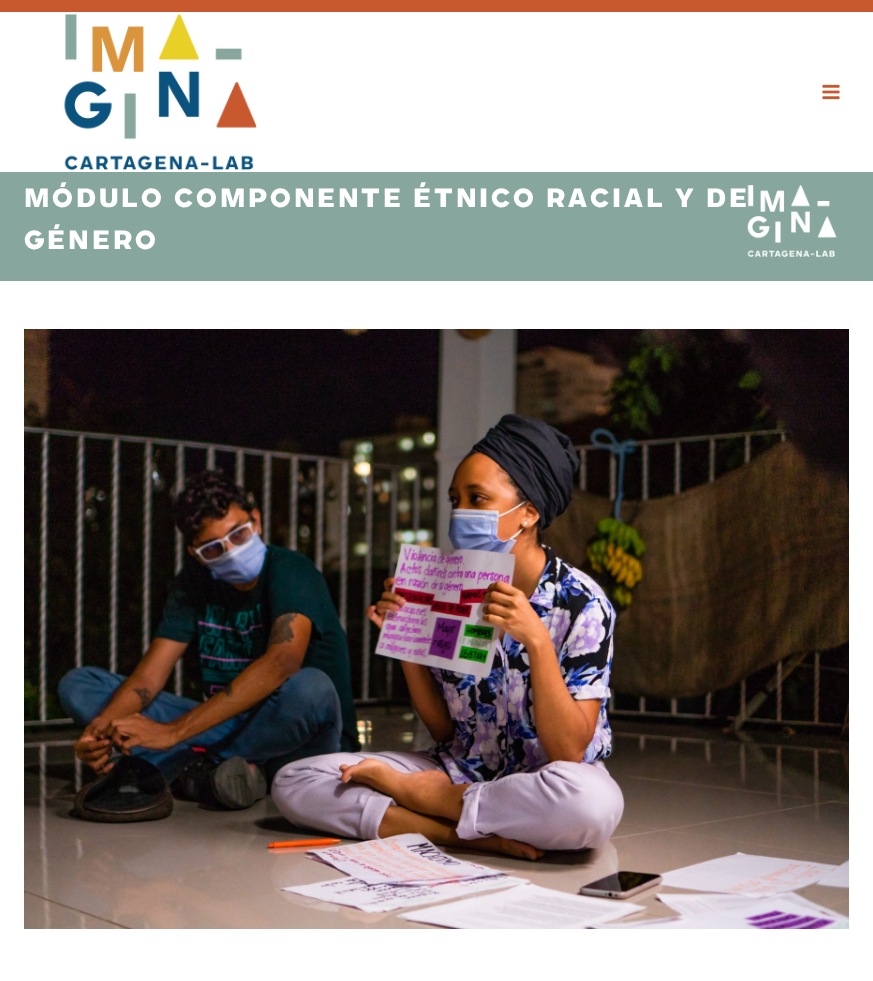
%!PS-Adobe-3.0
%%BoundingBox: 0 0 873 981
%%LanguageLevel: 3
%%Pages: 1
%%EndComments
%%BeginProlog
/m { moveto } bind def
/fn { [ exch dup neg 0 0 3 -1 roll 0 0 ] selectfont } def
/bx { rectfill } def
/im { 5 dict begin { /h /w /y /x /name } { exch def } forall
  gsave x y translate w h scale
  w h 8 [w 0 0 h 0 0] name (r) file false 3 colorimage grestore end } def
%%EndProlog
%%BeginSetup
<< /PageSize [873 981] >> setpagedevice
%%EndSetup
%%Page: 1 1
0 981 translate 1 -1 scale
4 setmiterlimit
1 setgray
0 0 873 981 bx
0.784 0.349 0.184 setrgbcolor
0 0 873 12 bx
(image0.raw) 64 14 193 156 im
(image1.raw) 822 84 18 16 im
0.529 0.655 0.62 setrgbcolor
0 172 873 109 bx
(image2.raw) 747 185 90 72 im
/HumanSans-Black 28 fn
1 setgray
24 207 m 2.8 0 (MÓDULO COMPONENTE ÉTNICO RACIAL Y DE) ashow
24 249 m 2.8 0 (GÉNERO) ashow
(image3.raw) 24 329 825 600 im
showpage
%%EOF
